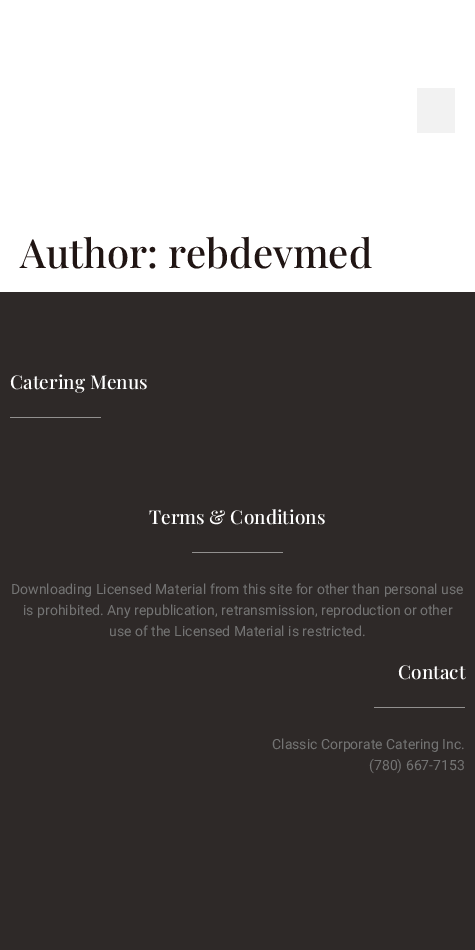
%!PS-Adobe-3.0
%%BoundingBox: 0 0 475 950
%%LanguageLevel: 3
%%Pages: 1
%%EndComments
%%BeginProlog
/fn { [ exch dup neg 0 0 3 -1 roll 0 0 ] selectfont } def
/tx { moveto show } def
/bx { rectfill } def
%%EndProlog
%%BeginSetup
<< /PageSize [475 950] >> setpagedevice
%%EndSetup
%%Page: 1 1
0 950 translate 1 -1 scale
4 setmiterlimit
1 setgray
0 0 475 950 bx
0.949 setgray
417 88 38 45 bx
/PlayfairDisplay-Medium 40 fn
0.125 0.082 0.075 setrgbcolor
(Author: rebdevmed) 20 268 tx
0.18 0.161 0.157 setrgbcolor
0 292 475 658 bx
/PlayfairDisplay-Medium 19 fn
1 setgray
(Catering Menus) 10 389 tx
0.573 0.565 0.561 setrgbcolor
10 417 91 1 bx
1 setgray
(Terms & Conditions) 149 524 tx
0.573 0.565 0.561 setrgbcolor
192 552 91 1 bx
/Roboto-Regular 14 fn
0.455 setgray
(Downloading Licensed Material from this site for other than personal use) 11 594 tx
(is prohibited. Any republication, retransmission, reproduction or other) 23 615 tx
(use of the Licensed Material is restricted.) 109 636 tx
/PlayfairDisplay-Medium 19 fn
1 setgray
(Contact) 398 679 tx
0.573 0.565 0.561 setrgbcolor
374 707 91 1 bx
/Roboto-Regular 14 fn
0.455 setgray
(Classic Corporate Catering Inc.) 272 749 tx
(\(780\) 667-7153) 369 770 tx
showpage
%%EOF
